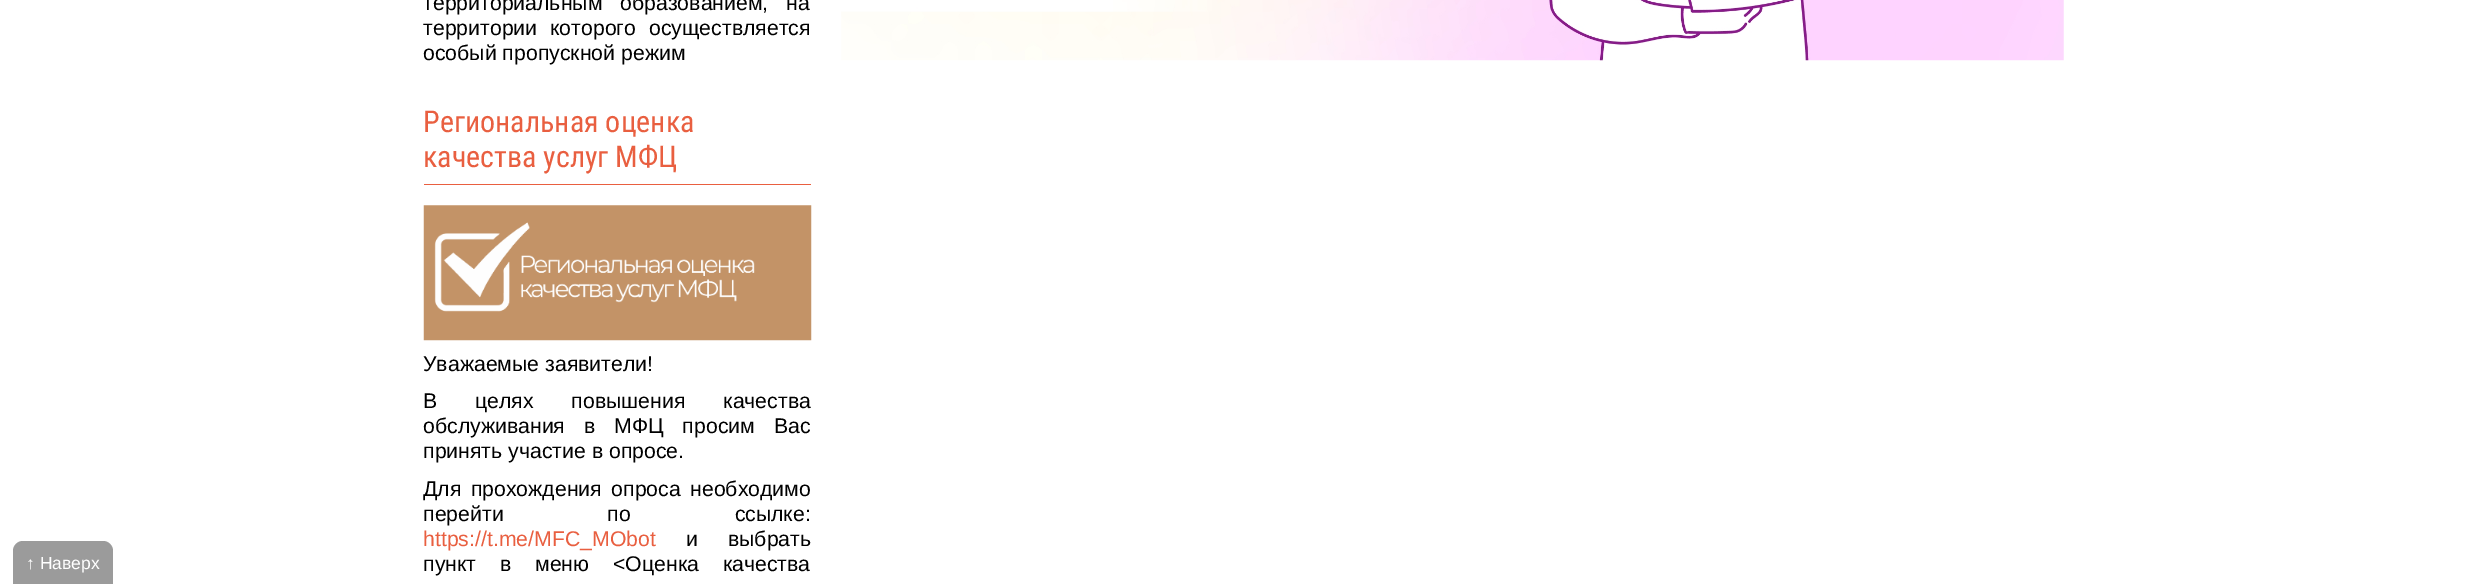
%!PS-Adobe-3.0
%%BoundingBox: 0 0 2486 584
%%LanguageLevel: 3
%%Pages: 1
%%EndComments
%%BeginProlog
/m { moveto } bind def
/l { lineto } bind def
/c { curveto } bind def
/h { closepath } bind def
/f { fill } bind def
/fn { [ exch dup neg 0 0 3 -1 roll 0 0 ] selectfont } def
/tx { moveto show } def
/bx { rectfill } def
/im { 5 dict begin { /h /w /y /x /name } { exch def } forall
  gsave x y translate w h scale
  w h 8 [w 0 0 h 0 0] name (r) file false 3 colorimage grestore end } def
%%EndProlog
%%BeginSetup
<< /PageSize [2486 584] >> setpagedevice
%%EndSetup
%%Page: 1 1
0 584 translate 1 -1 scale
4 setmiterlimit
1 setgray
0 0 2486 584 bx
0.608 setgray
23 541 m 103 541 l 108.5 541 113 545.5 113 551 c 113 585 l 13 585 l 13 551 l 13 545.5 17.5 541 23 541 c h f
/LiberationSans-Regular 17.5 fn
1 setgray
(↑ Наверх) 26 569 tx
/LiberationSans-Regular 21.25 fn
0 setgray
423 10 m 12 0 32 (территориальным образованием, на) widthshow
423 35 m 7 0 32 (территории которого осуществляется) widthshow
(особый пропускной режим) 423 60 tx
0.914 0.373 0.251 setrgbcolor
424 184 387 1 bx
/RobotoCondensed-Regular 30 fn
(Региональная оценка) 423 132 tx
(качества услуг МФЦ) 423 167 tx
(image0.raw) 423 205 389 136 im
/LiberationSans-Regular 21.25 fn
0 setgray
(Уважаемые заявители!) 423 371 tx
423 408 m 32 0 32 (В целях повышения качества) widthshow
423 433 m 13 0 32 (обслуживания в МФЦ просим Вас) widthshow
(принять участие в опросе.) 423 458 tx
423 496 m 3.5 0 32 (Для прохождения опроса необходимо) widthshow
423 521 m 98 0 32 (перейти по ссылке:) widthshow
0.914 0.373 0.251 setrgbcolor
(https://t.me/MFC_MObot) 423 546 tx
0 setgray
686 546 m 24 0 32 (и выбрать) widthshow
423 571 m 18 0 32 (пункт в меню <Оценка качества) widthshow
(image1.raw) 841 0 1223 61 im
showpage
%%EOF
